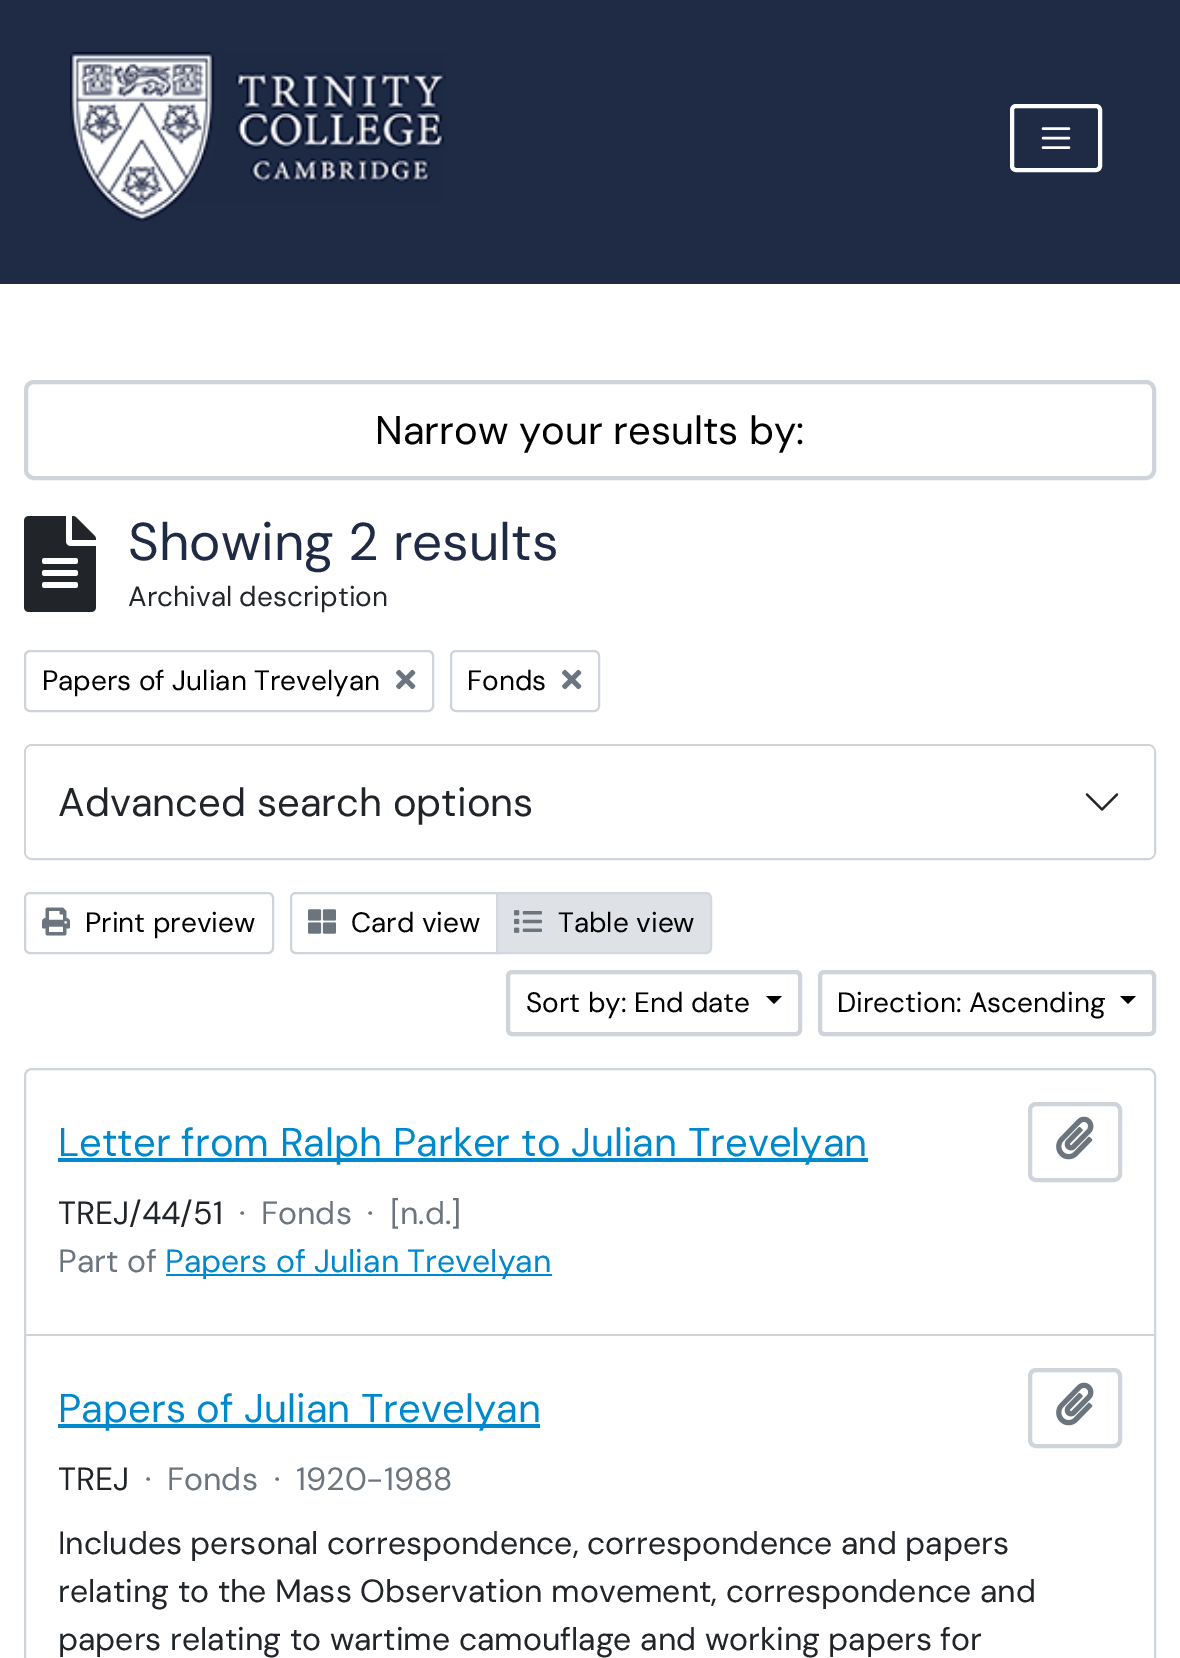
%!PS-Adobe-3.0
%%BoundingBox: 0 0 1180 1658
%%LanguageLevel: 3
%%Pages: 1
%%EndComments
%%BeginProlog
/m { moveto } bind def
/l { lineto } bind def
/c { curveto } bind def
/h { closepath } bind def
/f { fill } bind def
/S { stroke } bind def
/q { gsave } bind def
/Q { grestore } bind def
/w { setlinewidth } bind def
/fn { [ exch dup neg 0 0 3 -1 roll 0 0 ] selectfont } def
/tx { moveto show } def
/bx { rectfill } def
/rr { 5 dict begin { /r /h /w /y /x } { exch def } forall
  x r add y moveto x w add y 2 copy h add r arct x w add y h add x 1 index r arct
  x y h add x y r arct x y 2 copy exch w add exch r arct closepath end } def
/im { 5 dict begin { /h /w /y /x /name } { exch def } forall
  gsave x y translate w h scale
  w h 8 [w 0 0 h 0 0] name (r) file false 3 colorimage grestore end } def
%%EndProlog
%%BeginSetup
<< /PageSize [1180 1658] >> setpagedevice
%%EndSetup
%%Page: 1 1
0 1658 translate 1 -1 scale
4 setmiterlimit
1 setgray
0 0 1180 1658 bx
0.122 0.165 0.267 setrgbcolor
0 0 1180 20 bx
0 20 1180 264 bx
(image0.raw) 70 52 376 170 im
1 setgray
4 w
1012 106 88 64 4 rr S
2.4 w
1 setlinecap
1043 128.5 m 1069 128.5 l 1043 138 m 1069 138 l 1043 147.5 m 1069 147.5 l S
0.808 0.831 0.855 setrgbcolor
4 w
0 setlinecap
26 382 1128 96 8 rr S
/DMSans-Regular 40 fn
0 setgray
(Narrow your results by:) 375 444 tx
(image1.raw) 24 516 72 96 im
/DMSans-Regular 53 fn
0.122 0.165 0.267 setrgbcolor
(Showing 2 results) 128 560 tx
/DMSans-Regular 28 fn
0.129 0.145 0.161 setrgbcolor
(Archival description) 128 606 tx
0.808 0.831 0.855 setrgbcolor
2 w
25 651 408 60 5 rr S
0 setgray
(Papers of Julian Trevelyan) 42 690 tx
(image2.raw) 396 669 20 21 im
0.808 0.831 0.855 setrgbcolor
451 651 148 60 5 rr S
0 setgray
(Fonds) 467 690 tx
(image2.raw) 562 669 20 21 im
0.808 0.831 0.855 setrgbcolor
25 745 1130 114 7 rr S
1 setgray
26 746 1128 112 6 rr f
/DMSans-Regular 40 fn
0.129 0.145 0.161 setrgbcolor
(Advanced search options) 58 816 tx
(image3.raw) 1085 793 34 18 im
0.808 0.831 0.855 setrgbcolor
25 893 248 60 5 rr S
(image4.raw) 42 907 28 29 im
/DMSans-Regular 28 fn
0 setgray
(Print preview) 85 932 tx
0.808 0.831 0.855 setrgbcolor
296 893 m 497 893 l 497 953 l 296 953 l 293 953 291 951 291 948 c 291 898 l 291 895 293 893 296 893 c h S
(image5.raw) 308 909 28 25 im
0 setgray
(Card view) 351 932 tx
0.871 0.886 0.902 setrgbcolor
497 893 m 706 893 l 709 893 711 895 711 898 c 711 948 l 711 951 709 953 706 953 c 497 953 l h q f Q
0.827 0.847 0.871 setrgbcolor
S
(image6.raw) 514 910 28 23 im
0 setgray
(Table view) 558 932 tx
0.808 0.831 0.855 setrgbcolor
4 w
508 972 292 62 4 rr S
0 setgray
(Sort by: End date) 526 1012 tx
766 996 m 782 996 l 774 1004 l h f
0.808 0.831 0.855 setrgbcolor
820 972 334 62 4 rr S
0 setgray
(Direction: Ascending) 837 1012 tx
1120 996 m 1136 996 l 1128 1004 l h f
0.808 0.831 0.855 setrgbcolor
2 w
25 1069 1130 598 7 rr S
26 1334 1128 2 bx
0 0.533 0.8 setrgbcolor
58 1158 810 4 bx
/DMSans-Regular 40 fn
(Letter from Ralph Parker to Julian Trevelyan) 58 1156 tx
0.808 0.831 0.855 setrgbcolor
4 w
1030 1104 90 76 6 rr S
(image7.raw) 1056 1116 38 44 im
/DMSans-Regular 32 fn
0.129 0.145 0.161 setrgbcolor
(TREJ/44/51) 58 1224 tx
0.424 0.459 0.49 setrgbcolor
(·) 239 1224 tx
(Fonds) 261 1224 tx
(·) 367 1224 tx
([n.d.]) 390 1224 tx
(Part of) 58 1272 tx
0 0.533 0.8 setrgbcolor
166 1274 386 2 bx
(Papers of Julian Trevelyan) 165 1272 tx
58 1424 482 4 bx
/DMSans-Regular 40 fn
(Papers of Julian Trevelyan) 58 1422 tx
0.808 0.831 0.855 setrgbcolor
1030 1370 90 76 6 rr S
(image7.raw) 1056 1382 38 44 im
/DMSans-Regular 32 fn
0.129 0.145 0.161 setrgbcolor
(TREJ) 58 1490 tx
0.424 0.459 0.49 setrgbcolor
(·) 145 1490 tx
(Fonds) 167 1490 tx
(·) 274 1490 tx
(1920-1988) 296 1490 tx
0.129 0.145 0.161 setrgbcolor
(Includes personal correspondence, correspondence and papers) 58 1554 tx
(relating to the Mass Observation movement, correspondence and) 58 1602 tx
(papers relating to wartime camouflage and working papers for) 58 1650 tx
showpage
%%EOF
